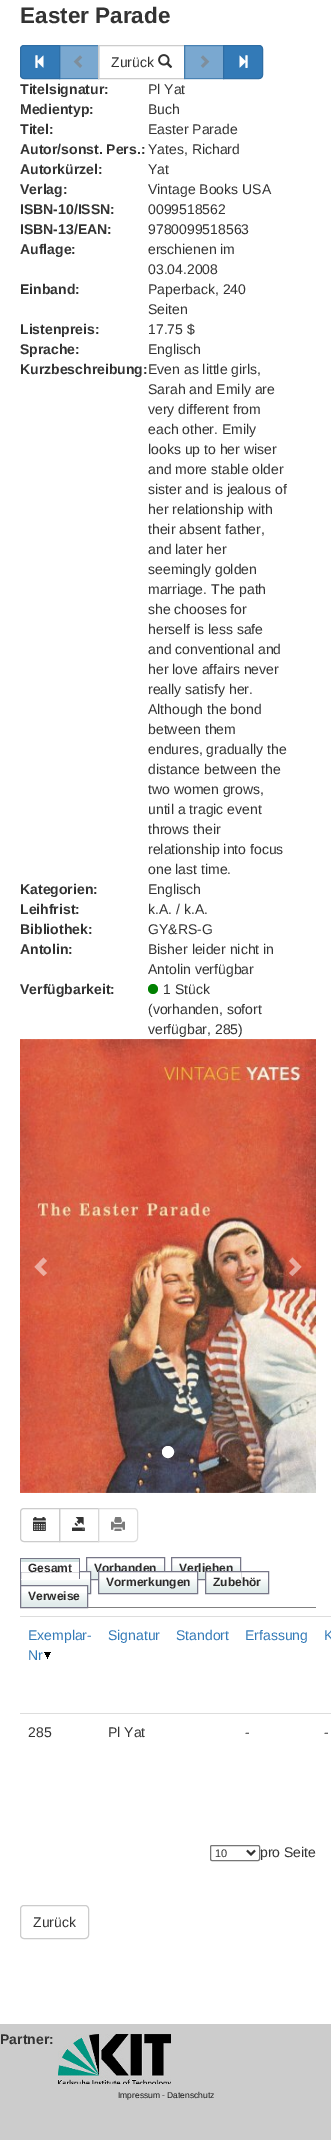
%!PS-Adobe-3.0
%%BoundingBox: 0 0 331 2140
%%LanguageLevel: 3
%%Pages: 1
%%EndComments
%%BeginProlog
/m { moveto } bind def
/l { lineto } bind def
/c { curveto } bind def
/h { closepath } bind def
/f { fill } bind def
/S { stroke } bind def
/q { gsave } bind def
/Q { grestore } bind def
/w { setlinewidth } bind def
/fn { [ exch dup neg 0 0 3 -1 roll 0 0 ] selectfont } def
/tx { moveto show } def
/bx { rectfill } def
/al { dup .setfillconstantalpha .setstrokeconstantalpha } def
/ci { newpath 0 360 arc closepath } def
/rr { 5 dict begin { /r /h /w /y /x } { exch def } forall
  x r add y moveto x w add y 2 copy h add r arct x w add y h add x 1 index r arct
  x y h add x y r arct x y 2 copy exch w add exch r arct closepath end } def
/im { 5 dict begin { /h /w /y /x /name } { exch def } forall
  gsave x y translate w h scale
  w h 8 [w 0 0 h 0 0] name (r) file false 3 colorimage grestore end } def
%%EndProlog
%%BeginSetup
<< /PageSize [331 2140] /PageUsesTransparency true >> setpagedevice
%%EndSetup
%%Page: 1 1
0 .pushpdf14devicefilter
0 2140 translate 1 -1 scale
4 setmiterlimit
0.8 setgray
0 0 331 2140 bx
1 setgray
0 0 331 2024 bx
/LiberationSans-Bold 22.5 fn
0.2 setgray
(Easter Parade) 20 23 tx
0.2 0.478 0.718 setrgbcolor
24 45.5 m 59.5 45.5 l 59.5 78.5 l 24 78.5 l 22 78.5 20.5 77 20.5 75 c 20.5 49 l 20.5 47 22 45.5 24 45.5 c h q f Q
0.18 0.427 0.643 setrgbcolor
S
(image0.raw) 35 55 9 13 im
0.65 al
0.2 0.478 0.718 setrgbcolor
59 45 39 34 bx
0.18 0.427 0.643 setrgbcolor
59.5 45.5 39 33 rectstroke
1 al
(image1.raw) 73 55 10 13 im
0.8 setgray
98.5 45.5 86 33 rectstroke
/LiberationSans-Regular 14 fn
0.2 setgray
(Zurück) 111 67 tx
(image2.raw) 158 54 15 14 im
0.65 al
0.2 0.478 0.718 setrgbcolor
184 45 39 34 bx
0.18 0.427 0.643 setrgbcolor
184.5 45.5 39 33 rectstroke
1 al
(image3.raw) 200 55 10 13 im
0.2 0.478 0.718 setrgbcolor
223.5 45.5 m 259 45.5 l 261 45.5 262.5 47 262.5 49 c 262.5 75 l 262.5 77 261 78.5 259 78.5 c 223.5 78.5 l h q f Q
0.18 0.427 0.643 setrgbcolor
S
(image4.raw) 239 55 9 13 im
/LiberationSans-Bold 14 fn
0.2 setgray
(Titelsignatur:) 20 94 tx
/LiberationSans-Regular 14 fn
(Pl Yat) 148 94 tx
/LiberationSans-Bold 14 fn
(Medientyp:) 20 114 tx
/LiberationSans-Regular 14 fn
(Buch) 148 114 tx
/LiberationSans-Bold 14 fn
(Titel:) 20 134 tx
/LiberationSans-Regular 14 fn
(Easter Parade) 148 134 tx
/LiberationSans-Bold 14 fn
(Autor/sonst. Pers.:) 20 154 tx
/LiberationSans-Regular 14 fn
(Yates, Richard) 148 154 tx
/LiberationSans-Bold 14 fn
(Autorkürzel:) 20 174 tx
/LiberationSans-Regular 14 fn
(Yat) 148 174 tx
/LiberationSans-Bold 14 fn
(Verlag:) 20 194 tx
/LiberationSans-Regular 14 fn
(Vintage Books USA) 148 194 tx
/LiberationSans-Bold 14 fn
(ISBN-10/ISSN:) 20 214 tx
/LiberationSans-Regular 14 fn
(0099518562) 148 214 tx
/LiberationSans-Bold 14 fn
(ISBN-13/EAN:) 20 234 tx
/LiberationSans-Regular 14 fn
(9780099518563) 148 234 tx
/LiberationSans-Bold 14 fn
(Auflage:) 20 254 tx
/LiberationSans-Regular 14 fn
(erschienen im) 148 254 tx
(03.04.2008) 148 274 tx
/LiberationSans-Bold 14 fn
(Einband:) 20 294 tx
/LiberationSans-Regular 14 fn
(Paperback, 240) 148 294 tx
(Seiten) 148 314 tx
/LiberationSans-Bold 14 fn
(Listenpreis:) 20 334 tx
/LiberationSans-Regular 14 fn
(17.75 $) 148 334 tx
/LiberationSans-Bold 14 fn
(Sprache:) 20 354 tx
/LiberationSans-Regular 14 fn
(Englisch) 148 354 tx
/LiberationSans-Bold 14 fn
(Kurzbeschreibung:) 20 374 tx
/LiberationSans-Regular 14 fn
(Even as little girls,) 148 374 tx
(Sarah and Emily are) 148 394 tx
(very different from) 148 414 tx
(each other. Emily) 148 434 tx
(looks up to her wiser) 148 454 tx
(and more stable older) 148 474 tx
(sister and is jealous of) 148 494 tx
(her relationship with) 148 514 tx
(their absent father,) 148 534 tx
(and later her) 148 554 tx
(seemingly golden) 148 574 tx
(marriage. The path) 148 594 tx
(she chooses for) 148 614 tx
(herself is less safe) 148 634 tx
(and conventional and) 148 654 tx
(her love affairs never) 148 674 tx
(really satisfy her.) 148 694 tx
(Although the bond) 148 714 tx
(between them) 148 734 tx
(endures, gradually the) 148 754 tx
(distance between the) 148 774 tx
(two women grows,) 148 794 tx
(until a tragic event) 148 814 tx
(throws their) 148 834 tx
(relationship into focus) 148 854 tx
(one last time.) 148 874 tx
/LiberationSans-Bold 14 fn
(Kategorien:) 20 894 tx
/LiberationSans-Regular 14 fn
(Englisch) 148 894 tx
/LiberationSans-Bold 14 fn
(Leihfrist:) 20 914 tx
/LiberationSans-Regular 14 fn
(k.A. / k.A.) 148 914 tx
/LiberationSans-Bold 14 fn
(Bibliothek:) 20 934 tx
/LiberationSans-Regular 14 fn
(GY&RS-G) 148 934 tx
/LiberationSans-Bold 14 fn
(Antolin:) 20 954 tx
/LiberationSans-Regular 14 fn
(Bisher leider nicht in) 148 954 tx
(Antolin verfügbar) 148 974 tx
/LiberationSans-Bold 14 fn
(Verfügbarkeit:) 20 994 tx
0 0.502 0 setrgbcolor
153 989 5 ci f
/LiberationSans-Regular 14 fn
0.2 setgray
(1 Stück) 163 994 tx
(\(vorhanden, sofort) 148 1014 tx
(verfügbar, 285\)) 148 1034 tx
(image5.raw) 20 1039 296 454 im
0.5 al
1 setgray
47 1261 m 41 1267 l 47 1273 l 43.5 1276 l 34.5 1267 l 43.5 1257.5 l h f
301.5 1267 m 292.5 1276 l 289 1273 l 295 1267 l 289 1261 l 292.5 1257.5 l h f
1 al
168 1452 5.5 ci q f Q
S
0.8 setgray
24 1508.5 m 59.5 1508.5 l 59.5 1541.5 l 24 1541.5 l 22 1541.5 20.5 1540 20.5 1538 c 20.5 1512 l 20.5 1510 22 1508.5 24 1508.5 c h S
(image6.raw) 33 1517 13 14 im
59.5 1508.5 39 33 rectstroke
(image7.raw) 72 1517 13 14 im
0.65 al
1 setgray
98 1508 m 134 1508 l 136 1508 138 1510 138 1512 c 138 1538 l 138 1540 136 1542 134 1542 c 98 1542 l h f
0.8 setgray
98.5 1508.5 m 134 1508.5 l 136 1508.5 137.5 1510 137.5 1512 c 137.5 1538 l 137.5 1540 136 1541.5 134 1541.5 c 98.5 1541.5 l h S
1 al
(image8.raw) 111 1517 14 14 im
0.502 setgray
88 1607 228 1 bx
(image9.raw) 87 1565 77 14 im
0.467 0.467 0.533 setrgbcolor
86.5 1557.5 78 22 rectstroke
1 setgray
80 1572 10 7 bx
(image11.raw) 21 1579 69 14 im
0.467 0.467 0.533 setrgbcolor
20.5 1571.5 70 22 rectstroke
1 setgray
21 1571 58 1 bx
/LiberationSans-Bold 12 fn
0.176 0.169 0.169 setrgbcolor
(Gesamt) 28 1572 tx
0.827 0.89 0.886 setrgbcolor
20 1559 60 3 bx
0.467 0.467 0.533 setrgbcolor
20 1558 60 1 bx
79 1558 1 22 bx
1 setgray
20 1579 60 1 bx
0.467 0.467 0.533 setrgbcolor
20 1558 1 22 bx
0.176 0.169 0.169 setrgbcolor
(Vorhanden) 94 1572 tx
(image10.raw) 172 1565 68 14 im
0.467 0.467 0.533 setrgbcolor
171.5 1557.5 69 22 rectstroke
0.176 0.169 0.169 setrgbcolor
(Verliehen) 179 1572 tx
1 setgray
99 1572 98 7 bx
(image12.raw) 99 1579 98 14 im
0.467 0.467 0.533 setrgbcolor
98.5 1571.5 99 22 rectstroke
0.176 0.169 0.169 setrgbcolor
(Vormerkungen) 106 1586 tx
1 setgray
206 1572 35 7 bx
(image13.raw) 206 1579 62 14 im
0.467 0.467 0.533 setrgbcolor
205.5 1571.5 63 22 rectstroke
0.176 0.169 0.169 setrgbcolor
(Zubehör) 213 1586 tx
1 setgray
21 1586 66 7 bx
(image14.raw) 21 1593 66 14 im
0.467 0.467 0.533 setrgbcolor
20.5 1585.5 67 22 rectstroke
0.176 0.169 0.169 setrgbcolor
(Verweise) 28 1600 tx
/LiberationSans-Regular 14 fn
0.2 0.478 0.718 setrgbcolor
(Exemplar-) 28 1640 tx
(Nr) 28 1660 tx
(image15.raw) 44 1652 7 7 im
(Signatur) 108 1640 tx
(Standort) 176 1640 tx
(Erfassung) 245 1640 tx
0.867 setgray
20 1616 311 1 bx
0.2 0.478 0.718 setrgbcolor
(K) 324 1640 tx
0.2 setgray
(285) 28 1737 tx
(Pl Yat) 108 1737 tx
(-) 245 1737 tx
0.867 setgray
20 1713 311 1 bx
0.2 setgray
(-) 324 1737 tx
0.463 setgray
210.5 1845.5 49 15 1.5 rr S
0.2 setgray
2 w
247 1850.5 m 251 1854.5 l 255 1850.5 l S
/LiberationSans-Regular 11 fn
(10) 215 1857 tx
/LiberationSans-Regular 14 fn
(pro Seite) 260 1857 tx
0.8 setgray
1 w
20.5 1905.5 68 33 3.5 rr S
0.2 setgray
(Zurück) 33 1927 tx
/LiberationSans-Bold 14 fn
(Partner:) 0 2044 tx
(image16.raw) 58 2034 113 50 im
/LiberationSans-Regular 8.5 fn
0.11 setgray
(Impressum) 118 2098 tx
0.2 setgray
(-) 162 2098 tx
0.11 setgray
(Datenschutz) 167 2098 tx
.poppdf14devicefilter showpage
%%EOF
